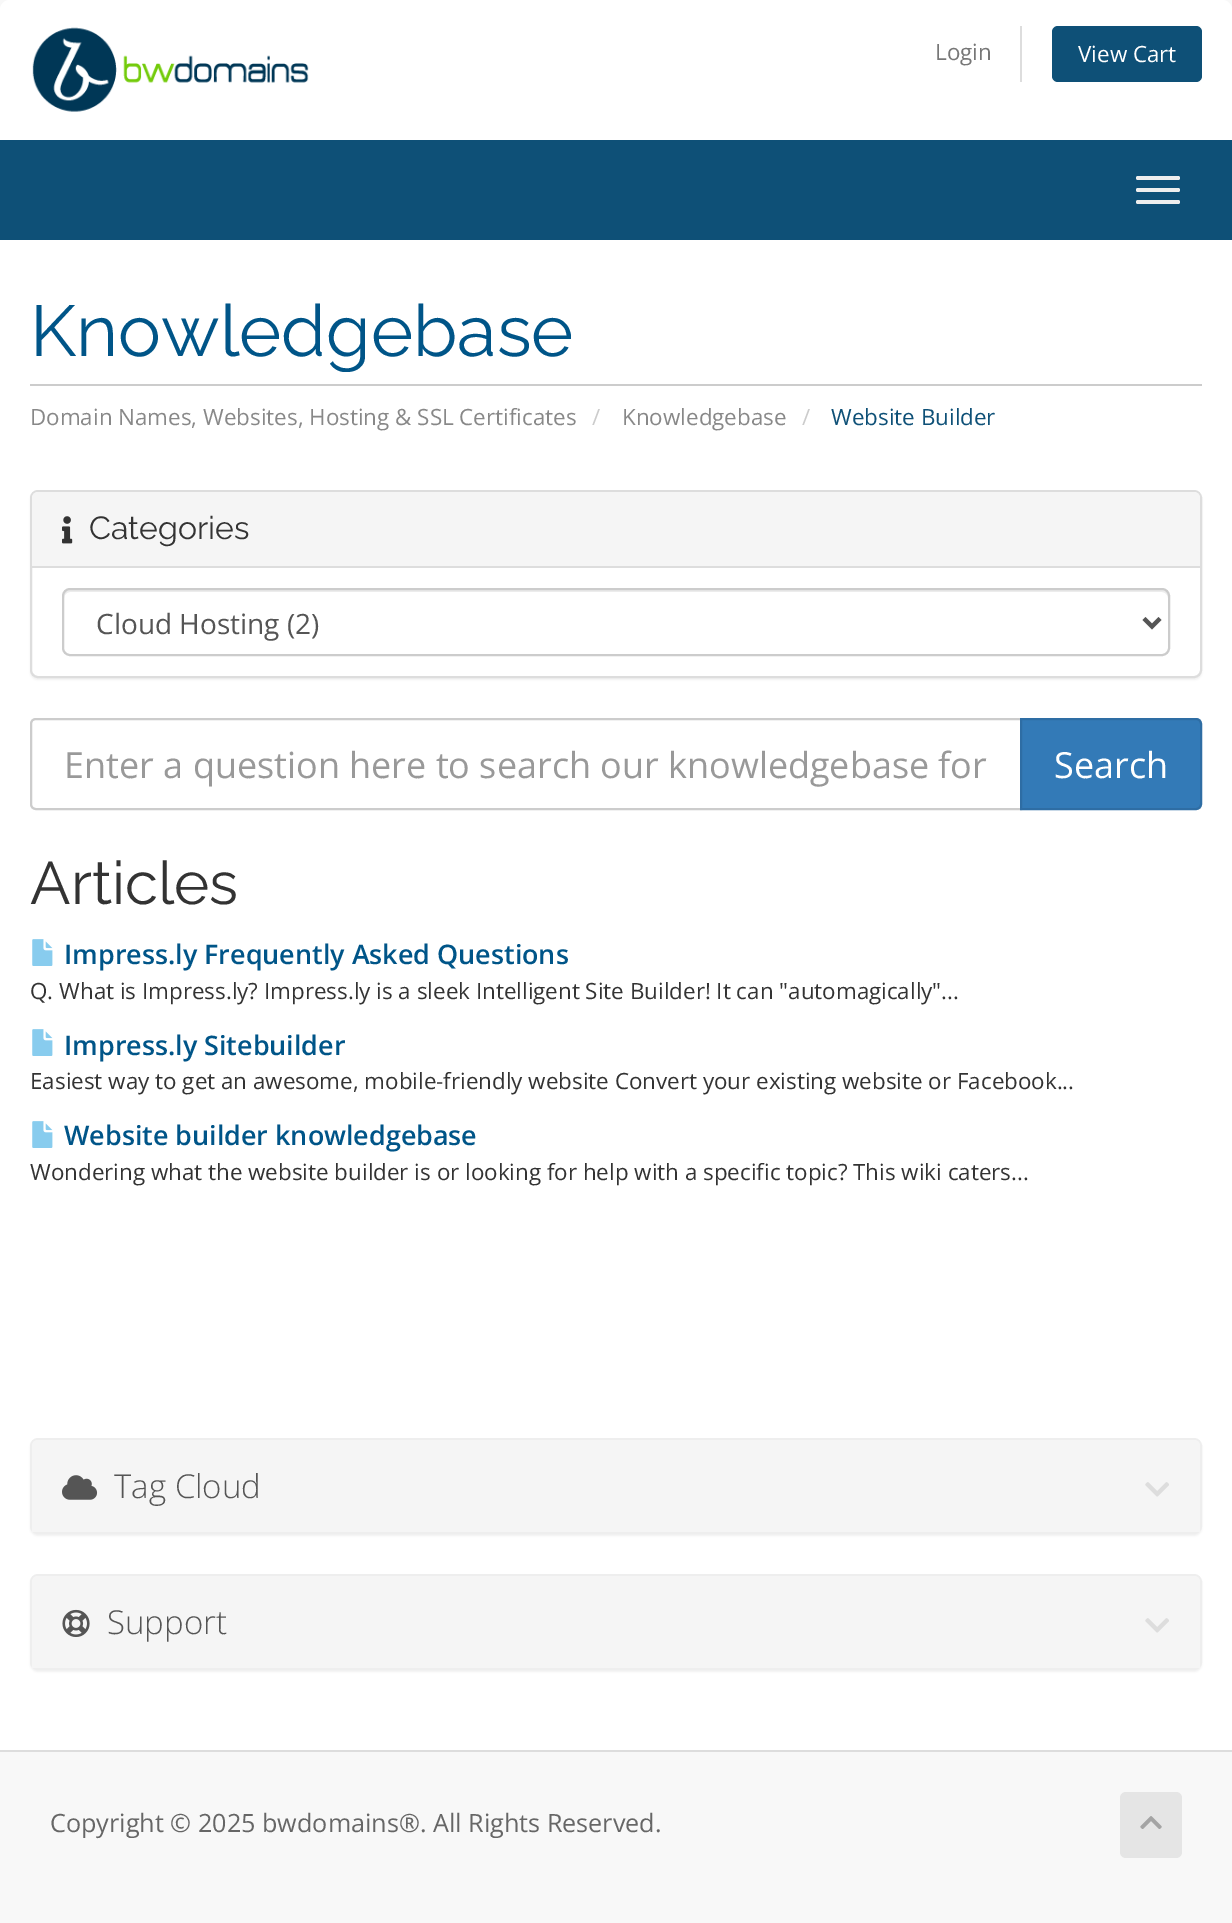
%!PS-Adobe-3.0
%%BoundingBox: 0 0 1232 1923
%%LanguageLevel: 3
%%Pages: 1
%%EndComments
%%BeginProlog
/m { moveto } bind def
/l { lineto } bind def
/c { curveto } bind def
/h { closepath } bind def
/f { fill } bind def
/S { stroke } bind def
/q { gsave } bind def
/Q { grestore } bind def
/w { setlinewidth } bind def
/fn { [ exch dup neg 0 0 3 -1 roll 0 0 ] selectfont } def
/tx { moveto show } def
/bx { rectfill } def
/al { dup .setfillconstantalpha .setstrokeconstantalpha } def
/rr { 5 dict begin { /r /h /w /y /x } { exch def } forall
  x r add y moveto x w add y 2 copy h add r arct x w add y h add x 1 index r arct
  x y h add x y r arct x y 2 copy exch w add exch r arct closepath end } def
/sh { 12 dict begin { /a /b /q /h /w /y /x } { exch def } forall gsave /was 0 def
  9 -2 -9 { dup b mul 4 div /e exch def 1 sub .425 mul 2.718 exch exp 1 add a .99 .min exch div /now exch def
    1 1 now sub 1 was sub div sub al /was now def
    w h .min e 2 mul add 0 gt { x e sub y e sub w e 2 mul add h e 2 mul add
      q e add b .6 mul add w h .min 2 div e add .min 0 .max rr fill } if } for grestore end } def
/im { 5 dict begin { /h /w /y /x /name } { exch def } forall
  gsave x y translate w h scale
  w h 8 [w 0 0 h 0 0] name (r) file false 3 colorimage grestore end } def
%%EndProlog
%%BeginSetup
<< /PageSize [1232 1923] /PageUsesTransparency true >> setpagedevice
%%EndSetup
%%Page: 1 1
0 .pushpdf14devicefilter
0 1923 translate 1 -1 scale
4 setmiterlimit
0.973 setgray
0 0 1232 1923 bx
1 setgray
10 0 m 1222 0 l 1227.5 0 1232 4.5 1232 10 c 1232 140 l 0 140 l 0 10 l 0 4.5 4.5 0 10 0 c h f
(image0.raw) 32 27 277 85 im
/OpenSans-Regular 22.4 fn
0.467 setgray
(Login) 935 60 tx
0.867 setgray
1020 26 2 56 bx
0.055 0.314 0.467 setrgbcolor
1052 26 150 56 6 rr f
1 setgray
(View Cart) 1078 62 tx
0.055 0.314 0.467 setrgbcolor
0 140 1232 100 bx
0.933 setgray
1136 176 44 4 2 rr f
1136 188 44 4 2 rr f
1136 200 44 4 2 rr f
1 setgray
0 240 1232 1510 bx
0.8 setgray
30 384 1172 2 bx
/Raleway-Regular 72 fn
0 0.333 0.533 setrgbcolor
(Knowledgebase) 30 356 tx
/OpenSans-Regular 22.4 fn
0.533 setgray
(Domain Names, Websites, Hosting & SSL Certificates) 30 425 tx
0.8 setgray
(/) 592 425 tx
0.533 setgray
(Knowledgebase) 622 425 tx
0.8 setgray
(/) 802 425 tx
0.055 0.314 0.467 setrgbcolor
(Website Builder) 831 425 tx
0 setgray
30 492 1172 188 8 1 0.05 sh
1 setgray
31 491 1170 186 7 rr q f Q
0.867 setgray
2 w
S
0.961 setgray
38 492 m 1194 492 l 1197.5 492 1200 494.5 1200 498 c 1200 568 l 32 568 l 32 498 l 32 494.5 34.5 492 38 492 c h f
0.867 setgray
32 566 1168 2 bx
(image1.raw) 62 516 11 28 im
/Raleway-Regular 32 fn
0.2 setgray
(Categories) 89 539 tx
0.925 setgray
70 592 m 1162 592 l 1165 592 1168 595 1168 598 c 1168 596 l 1168 593 1165 590 1162 590 c 70 590 l 67 590 64 593 64 596 c 64 598 l 64 595 67 592 70 592 c h f
0.8 setgray
63 589 1106 66 7 rr S
0.333 setgray
4 w
1144 618.5 m 1152 626.5 l 1160 618.5 l S
/OpenSans-Regular 28 fn
(Cloud Hosting \(2\)) 96 634 tx
0.8 setgray
2 w
36 719 m 1021 719 l 1021 809 l 36 809 l 33 809 31 807 31 804 c 31 724 l 31 721 33 719 36 719 c h S
/OpenSans-Regular 36 fn
0.6 setgray
(Enter a question here to search our knowledgebase for) 64 778 tx
0.2 0.478 0.718 setrgbcolor
1021 719 m 1196 719 l 1199 719 1201 721 1201 724 c 1201 804 l 1201 807 1199 809 1196 809 c 1021 809 l h q f Q
0.18 0.427 0.643 setrgbcolor
S
1 setgray
(Search) 1054 778 tx
/Raleway-Regular 60 fn
0.2 setgray
(Articles) 30 904 tx
(image2.raw) 32 939 21 27 im
/OpenSans-SemiBold 26.9 fn
0 0.333 0.533 setrgbcolor
(Impress.ly Frequently Asked Questions) 64 964 tx
/OpenSans-Regular 22.4 fn
0.2 setgray
(Q. What is Impress.ly? Impress.ly is a sleek Intelligent Site Builder! It can "automagically"...) 30 999 tx
(image2.raw) 32 1029 21 27 im
/OpenSans-SemiBold 26.9 fn
0 0.333 0.533 setrgbcolor
(Impress.ly Sitebuilder) 64 1055 tx
/OpenSans-Regular 22.4 fn
0.2 setgray
(Easiest way to get an awesome, mobile-friendly website Convert your existing website or Facebook...) 30 1089 tx
(image2.raw) 32 1121 21 27 im
/OpenSans-SemiBold 26.9 fn
0 0.333 0.533 setrgbcolor
(Website builder knowledgebase) 64 1145 tx
/OpenSans-Regular 22.4 fn
0.2 setgray
(Wondering what the website builder is or looking for help with a specific topic? This wiki caters...) 30 1180 tx
0 setgray
30 1440 1172 96 8 1 0.05 sh
0.933 setgray
31 1439 1170 94 7 rr S
0.961 setgray
38 1440 m 1194 1440 l 1197.5 1440 1200 1442.5 1200 1446 c 1200 1532 l 32 1532 l 32 1446 l 32 1442.5 34.5 1440 38 1440 c h f
(image3.raw) 62 1475 36 25 im
/OpenSans-Light 33 fn
0.333 setgray
(Tag Cloud) 114 1498 tx
(image4.raw) 1145 1482 24 15 im
0 setgray
30 1576 1172 96 8 1 0.05 sh
0.933 setgray
31 1575 1170 94 7 rr S
0.961 setgray
38 1576 m 1194 1576 l 1197.5 1576 1200 1578.5 1200 1582 c 1200 1668 l 32 1668 l 32 1582 l 32 1578.5 34.5 1576 38 1576 c h f
(image5.raw) 62 1609 28 28 im
0.333 setgray
(Support) 107 1634 tx
(image4.raw) 1145 1618 24 15 im
0.867 setgray
0 1750 1232 2 bx
/OpenSans-Regular 25.2 fn
0.4 setgray
(Copyright © 2025 bwdomains®. All Rights Reserved.) 50 1832 tx
0.898 setgray
1120 1792 62 66 6 rr f
(image6.raw) 1140 1816 22 13 im
.poppdf14devicefilter showpage
%%EOF
